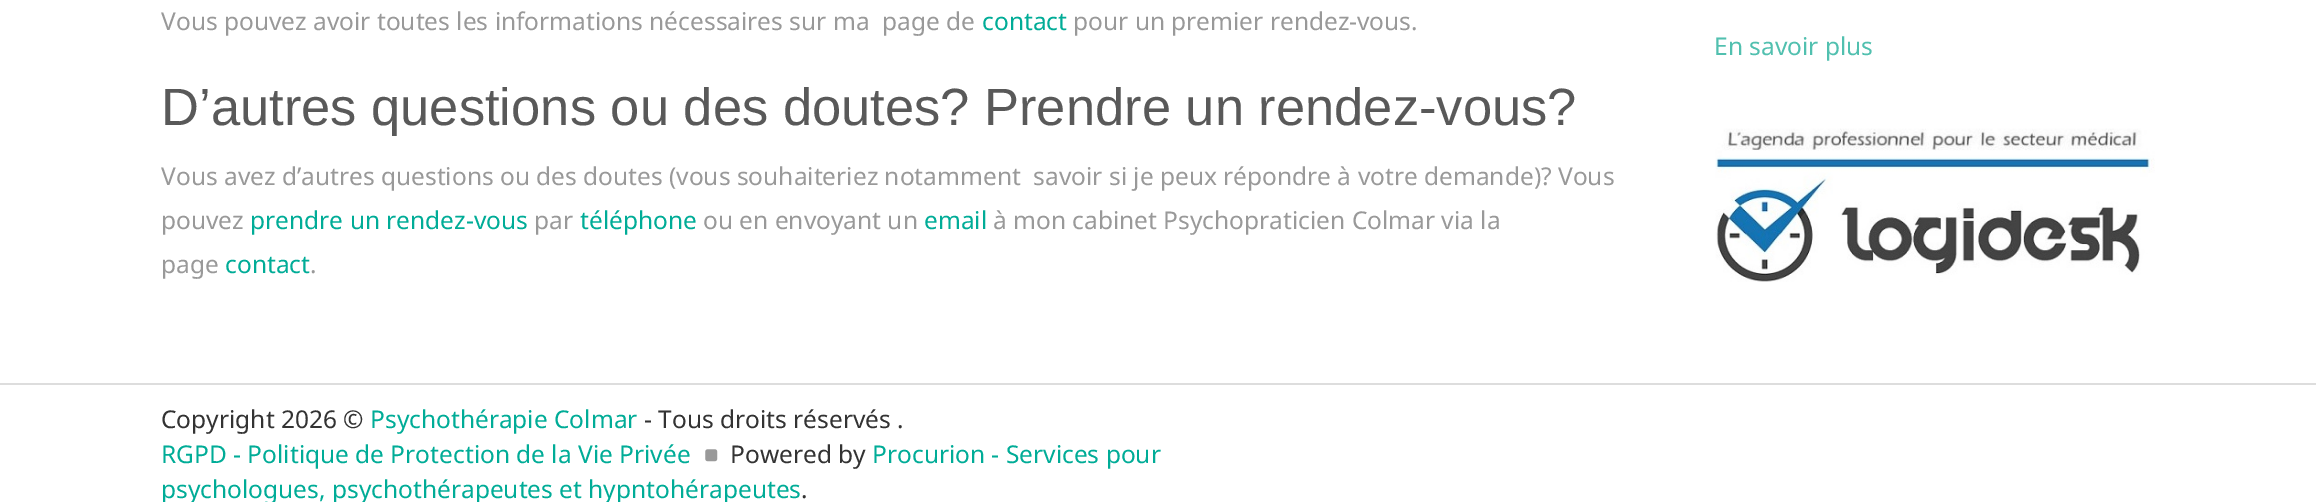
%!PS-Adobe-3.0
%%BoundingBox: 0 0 2316 502
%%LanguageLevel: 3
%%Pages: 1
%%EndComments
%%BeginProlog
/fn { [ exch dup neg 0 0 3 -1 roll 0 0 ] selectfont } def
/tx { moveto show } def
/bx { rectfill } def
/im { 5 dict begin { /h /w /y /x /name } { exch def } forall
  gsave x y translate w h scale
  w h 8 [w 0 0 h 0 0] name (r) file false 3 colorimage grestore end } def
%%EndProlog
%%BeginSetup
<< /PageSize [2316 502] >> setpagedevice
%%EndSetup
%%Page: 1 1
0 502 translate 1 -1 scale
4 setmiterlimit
1 setgray
0 0 2316 502 bx
/NotoSans-Regular 24.5 fn
0.6 setgray
(Vous pouvez avoir toutes les informations nécessaires sur ma  page de) 161 30 tx
0 0.675 0.592 setrgbcolor
(contact) 982 30 tx
0.6 setgray
(pour un premier rendez-vous.) 1073 30 tx
/LiberationSans-Regular 52.5 fn
0.349 setgray
(D’autres questions ou des doutes? Prendre un rendez-vous?) 161 125 tx
/NotoSans-Regular 24.5 fn
0.6 setgray
(Vous avez d’autres questions ou des doutes \(vous souhaiteriez notamment  savoir si je peux répondre à votre demande\)? Vous) 161 185 tx
(pouvez) 161 229 tx
0 0.675 0.592 setrgbcolor
(prendre un rendez-vous) 250 229 tx
0.6 setgray
(par) 534 229 tx
0 0.675 0.592 setrgbcolor
(téléphone) 580 229 tx
0.6 setgray
(ou en envoyant un) 703 229 tx
0 0.675 0.592 setrgbcolor
(email) 924 229 tx
0.6 setgray
(à mon cabinet Psychopraticien Colmar via la) 993 229 tx
(page) 161 273 tx
0 0.675 0.592 setrgbcolor
(contact) 225 273 tx
0.6 setgray
(.) 310 273 tx
0.318 0.753 0.686 setrgbcolor
(En savoir plus) 1714 55 tx
(image0.raw) 1715 128 440 154 im
0.867 setgray
0 383 2316 2 bx
0.2 setgray
(Copyright 2026 ©) 161 428 tx
0 0.675 0.592 setrgbcolor
(Psychothérapie Colmar) 370 428 tx
0.2 setgray
(- Tous droits réservés .) 644 428 tx
0 0.675 0.592 setrgbcolor
(RGPD - Politique de Protection de la Vie Privée) 161 463 tx
(image1.raw) 705 449 13 13 im
0.2 setgray
(Powered by) 730 463 tx
0 0.675 0.592 setrgbcolor
(Procurion - Services pour) 872 463 tx
(psychologues, psychothérapeutes et hypntohérapeutes) 161 498 tx
0.2 setgray
(.) 801 498 tx
showpage
%%EOF
